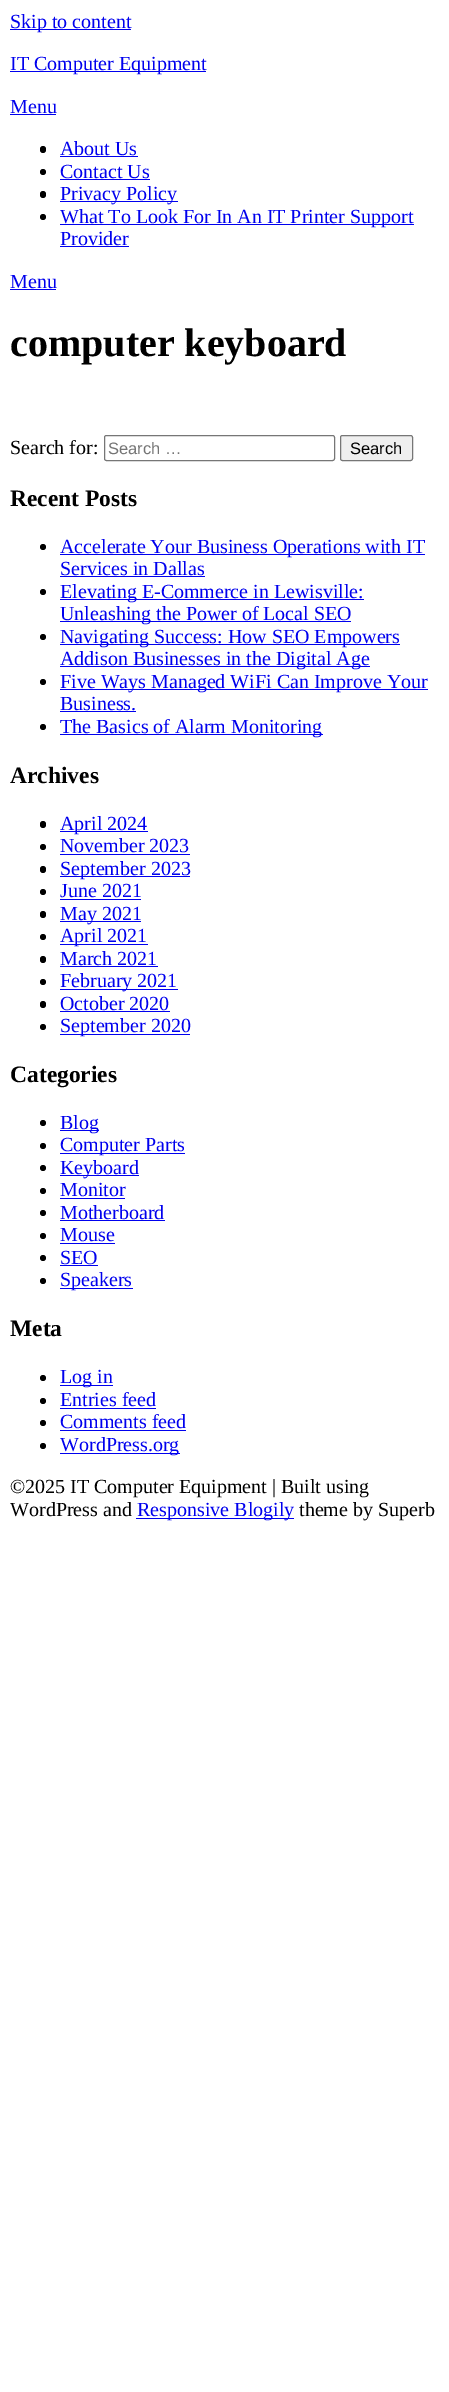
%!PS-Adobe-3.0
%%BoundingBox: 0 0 449 2392
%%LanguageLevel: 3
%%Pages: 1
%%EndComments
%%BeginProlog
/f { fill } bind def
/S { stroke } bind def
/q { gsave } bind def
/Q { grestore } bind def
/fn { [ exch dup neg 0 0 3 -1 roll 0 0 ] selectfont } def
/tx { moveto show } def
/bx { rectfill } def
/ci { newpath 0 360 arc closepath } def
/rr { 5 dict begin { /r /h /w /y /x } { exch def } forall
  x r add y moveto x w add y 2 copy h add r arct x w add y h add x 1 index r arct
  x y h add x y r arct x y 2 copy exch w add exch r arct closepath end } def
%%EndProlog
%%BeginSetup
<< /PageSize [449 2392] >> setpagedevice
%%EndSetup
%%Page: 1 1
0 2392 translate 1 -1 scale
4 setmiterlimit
1 setgray
0 0 449 2392 bx
0 0 0.933 setrgbcolor
10 29 121 1 bx
/LiberationSerif-Regular 20 fn
(Skip to content) 10 28 tx
10 71 196 1 bx
(IT Computer Equipment) 10 70 tx
(Menu) 10 113 tx
10 114 46 1 bx
0 setgray
40 146 6 7 3 rr f
0 0 0.933 setrgbcolor
(About Us) 60 155 tx
60 156 78 1 bx
0 setgray
43 172 3 ci f
0 0 0.933 setrgbcolor
(Contact Us) 60 178 tx
60 179 90 1 bx
0 setgray
40 191 6 7 3 rr f
0 0 0.933 setrgbcolor
60 201 118 1 bx
(Privacy Policy) 60 200 tx
0 setgray
43 217 3 ci f
0 0 0.933 setrgbcolor
60 224 354 1 bx
(What To Look For In An IT Printer Support) 60 223 tx
(Provider) 60 245 tx
60 246 69 1 bx
(Menu) 10 288 tx
10 289 46 1 bx
/LiberationSerif-Bold 40 fn
0 setgray
(computer keyboard) 10 356 tx
/LiberationSerif-Regular 20 fn
(Search for:) 10 454 tx
0.463 setgray
104.5 435.5 230 25 2 rr S
/LiberationSans-Regular 16.5 fn
0.459 setgray
(Search …) 108 454 tx
0.937 setgray
340.5 435.5 72 25 2 rr q f Q
0.463 setgray
S
0 setgray
(Search) 350 454 tx
/LiberationSerif-Bold 23.5 fn
(Recent Posts) 10 506 tx
43 547 3 ci f
0 0 0.933 setrgbcolor
60 554 365 1 bx
/LiberationSerif-Regular 20 fn
(Accelerate Your Business Operations with IT) 60 553 tx
(Services in Dallas) 60 575 tx
60 576 145 1 bx
0 setgray
43 592 3 ci f
0 0 0.933 setrgbcolor
60 599 304 1 bx
(Elevating E-Commerce in Lewisville:) 60 598 tx
60 621 291 1 bx
(Unleashing the Power of Local SEO) 60 620 tx
0 setgray
43 637 3 ci f
0 0 0.933 setrgbcolor
60 644 340 1 bx
(Navigating Success: How SEO Empowers) 60 643 tx
60 666 310 1 bx
(Addison Businesses in the Digital Age) 60 665 tx
0 setgray
43 682 3 ci f
0 0 0.933 setrgbcolor
60 689 368 1 bx
(Five Ways Managed WiFi Can Improve Your) 60 688 tx
(Business.) 60 710 tx
60 711 76 1 bx
0 setgray
43 727 3 ci f
0 0 0.933 setrgbcolor
60 734 263 1 bx
(The Basics of Alarm Monitoring) 60 733 tx
/LiberationSerif-Bold 23.5 fn
0 setgray
(Archives) 10 783 tx
40 821 6 7 3 rr f
0 0 0.933 setrgbcolor
60 831 88 1 bx
/LiberationSerif-Regular 20 fn
(April 2024) 60 830 tx
0 setgray
43 847 3 ci f
0 0 0.933 setrgbcolor
(November 2023) 60 852 tx
60 854 130 1 bx
0 setgray
40 866 6 7 3 rr f
0 0 0.933 setrgbcolor
60 876 130 1 bx
(September 2023) 60 875 tx
0 setgray
43 892 3 ci f
0 0 0.933 setrgbcolor
(June 2021) 60 897 tx
60 899 81 1 bx
0 setgray
40 911 6 7 3 rr f
0 0 0.933 setrgbcolor
60 921 81 1 bx
(May 2021) 60 920 tx
0 setgray
43 937 3 ci f
0 0 0.933 setrgbcolor
60 944 88 1 bx
(April 2021) 60 942 tx
0 setgray
40 956 6 7 3 rr f
0 0 0.933 setrgbcolor
(March 2021) 60 965 tx
60 966 98 1 bx
0 setgray
43 982 3 ci f
0 0 0.933 setrgbcolor
60 989 118 1 bx
(February 2021) 60 987 tx
0 setgray
40 1001 6 7 3 rr f
0 0 0.933 setrgbcolor
(October 2020) 60 1010 tx
60 1011 110 1 bx
0 setgray
43 1027 3 ci f
0 0 0.933 setrgbcolor
60 1034 130 1 bx
(September 2020) 60 1032 tx
/LiberationSerif-Bold 23.5 fn
0 setgray
(Categories) 10 1082 tx
43 1123 3 ci f
0 0 0.933 setrgbcolor
60 1130 39 1 bx
/LiberationSerif-Regular 20 fn
(Blog) 60 1129 tx
0 setgray
43 1146 3 ci f
0 0 0.933 setrgbcolor
60 1153 125 1 bx
(Computer Parts) 60 1151 tx
0 setgray
43 1168 3 ci f
0 0 0.933 setrgbcolor
60 1175 79 1 bx
(Keyboard) 60 1174 tx
0 setgray
43 1191 3 ci f
0 0 0.933 setrgbcolor
(Monitor) 60 1196 tx
60 1198 65 1 bx
0 setgray
43 1213 3 ci f
0 0 0.933 setrgbcolor
(Motherboard) 60 1219 tx
60 1220 105 1 bx
0 setgray
43 1236 3 ci f
0 0 0.933 setrgbcolor
(Mouse) 60 1241 tx
60 1243 55 1 bx
0 setgray
43 1258 3 ci f
0 0 0.933 setrgbcolor
(SEO) 60 1264 tx
60 1265 38 1 bx
0 setgray
43 1281 3 ci f
0 0 0.933 setrgbcolor
60 1288 73 1 bx
(Speakers) 60 1286 tx
/LiberationSerif-Bold 23.5 fn
0 setgray
(Meta) 10 1336 tx
43 1378 3 ci f
0 0 0.933 setrgbcolor
60 1385 53 1 bx
/LiberationSerif-Regular 20 fn
(Log in) 60 1383 tx
0 setgray
43 1401 3 ci f
0 0 0.933 setrgbcolor
(Entries feed) 60 1406 tx
60 1408 96 1 bx
0 setgray
43 1423 3 ci f
0 0 0.933 setrgbcolor
(Comments feed) 60 1428 tx
60 1430 126 1 bx
0 setgray
43 1446 3 ci f
0 0 0.933 setrgbcolor
60 1453 120 1 bx
(WordPress.org) 60 1451 tx
0 setgray
(©2025 IT Computer Equipment | Built using) 10 1493 tx
(WordPress and) 10 1516 tx
0 0 0.933 setrgbcolor
136 1518 158 1 bx
(Responsive Blogily) 137 1516 tx
0 setgray
(theme by Superb) 299 1516 tx
showpage
%%EOF
